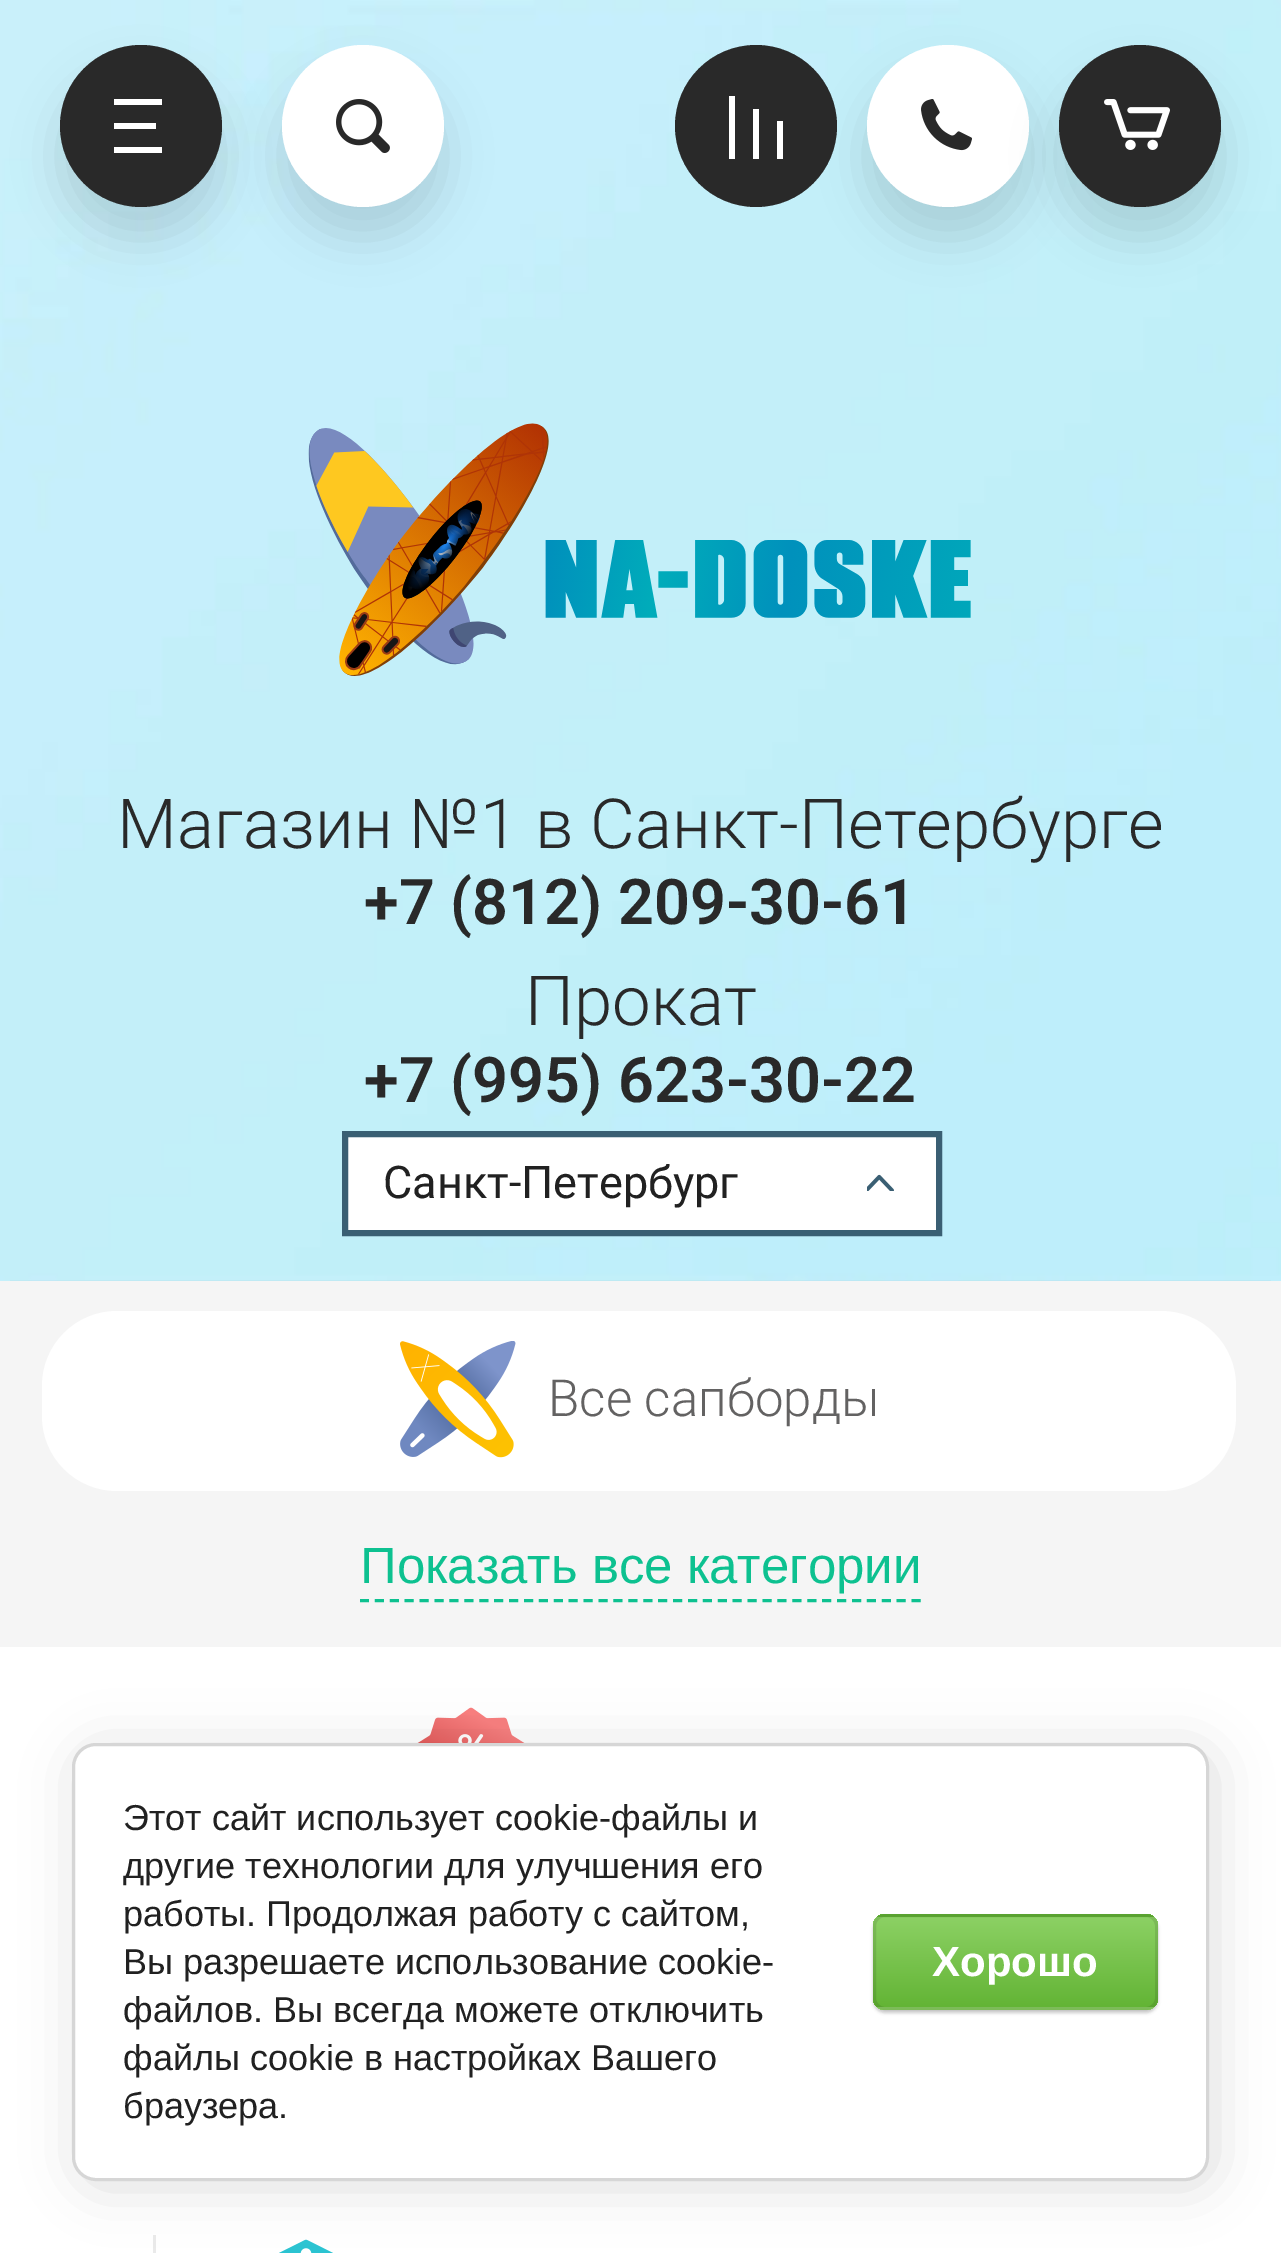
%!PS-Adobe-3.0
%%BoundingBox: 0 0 1281 2253
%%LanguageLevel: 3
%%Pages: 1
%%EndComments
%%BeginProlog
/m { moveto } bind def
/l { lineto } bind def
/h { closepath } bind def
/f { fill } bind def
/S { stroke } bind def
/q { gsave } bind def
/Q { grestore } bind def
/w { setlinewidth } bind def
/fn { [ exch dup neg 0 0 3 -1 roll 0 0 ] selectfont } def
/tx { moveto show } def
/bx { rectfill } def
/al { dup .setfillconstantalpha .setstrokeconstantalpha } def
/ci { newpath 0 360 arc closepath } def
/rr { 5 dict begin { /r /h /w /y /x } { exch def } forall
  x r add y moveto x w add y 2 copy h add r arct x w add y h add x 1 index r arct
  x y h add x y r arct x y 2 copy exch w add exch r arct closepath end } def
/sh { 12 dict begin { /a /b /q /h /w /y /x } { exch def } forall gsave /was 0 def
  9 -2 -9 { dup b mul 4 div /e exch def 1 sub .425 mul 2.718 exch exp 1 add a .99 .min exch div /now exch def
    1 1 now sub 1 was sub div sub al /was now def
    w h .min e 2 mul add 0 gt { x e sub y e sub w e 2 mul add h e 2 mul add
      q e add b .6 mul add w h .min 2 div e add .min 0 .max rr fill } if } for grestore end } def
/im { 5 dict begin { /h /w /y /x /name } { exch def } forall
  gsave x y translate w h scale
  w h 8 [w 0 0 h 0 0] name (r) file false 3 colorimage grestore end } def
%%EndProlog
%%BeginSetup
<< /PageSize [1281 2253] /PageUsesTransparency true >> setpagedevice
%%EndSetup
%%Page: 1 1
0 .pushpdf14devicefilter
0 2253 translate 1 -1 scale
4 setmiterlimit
0.961 setgray
0 0 1281 2253 bx
(image0.raw) 0 0 1281 1281 im
0 setgray
282 75 162 162 81 22.5 0.13 sh
1 setgray
363 126 81 ci f
0 setgray
60 75 162 162 81 22.5 0.13 sh
0.161 setgray
141 126 81 ci f
1 setgray
114 99 48 6 bx
114 123 42 6 bx
114 147 48 6 bx
(image1.raw) 336 99 54 54 im
0 setgray
867 75 162 162 81 22.5 0.13 sh
0.161 setgray
756 126 81 ci f
1 setgray
783 159 m 783 121 l 777 121 l 777 159 l h 759 109 m 759 159 l 753 159 l 753 109 l h 735 96 m 735 159 l 729 159 l 729 96 l h f
948 126 81 ci f
(image2.raw) 921 99 51 52 im
0 setgray
1059 75 162 162 81 22.5 0.13 sh
0.161 setgray
1140 126 81 ci f
(image3.raw) 1104 99 66 51 im
(image4.raw) 308 423 663 253 im
/Roboto-Light 69 fn
(Магазин №1 в Санкт-Петербурге) 117 848 tx
/Roboto-SemiBold 63 fn
(+7 \(812\) 209-30-61) 364 924 tx
/Roboto-Light 69 fn
(Прокат) 525 1025 tx
/Roboto-SemiBold 63 fn
(+7 \(995\) 623-30-22) 364 1102 tx
1 setgray
345 1134 m 939 1134 l 939 1233 l 345 1233 l h q f Q
0.227 0.373 0.451 setrgbcolor
6 w
S
/Roboto-Regular 45 fn
0.129 setgray
(Санкт-Петербург) 383 1198 tx
(image5.raw) 867 1174 27 17 im
q
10 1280 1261 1 rectclip
0 setgray
0 1287 1281 366 0 6 0.15 sh
Q
1 setgray
42 1311 1194 180 75 rr f
(image6.raw) 400 1341 116 117 im
/Roboto-Light 51 fn
0.388 0.384 0.384 setrgbcolor
(Все сапборды) 548 1416 tx
0.051 0.757 0.565 setrgbcolor
3 w
[9 5.91] 0 setdash
360 1600.5 m 921 1600.5 l S
/LiberationSans-Regular 51 fn
(Показать все категории) 360 1583 tx
1 setgray
0 1647 1281 606 bx
(image7.raw) 417 1707 108 36 im
0.918 setgray
153 2235 3 18 bx
(image8.raw) 279 2239 54 14 im
0 setgray
78 1749 1137 438 24 27 0.14 sh
1 setgray
73.5 1744.5 1134 435 22.5 rr q f Q
0.839 setgray
[] 0 setdash
S
/LiberationSans-Regular 36 fn
0.129 setgray
(Этот сайт использует cookie-файлы и) 123 1830 tx
(другие технологии для улучшения его) 123 1878 tx
(работы. Продолжая работу с сайтом,) 123 1926 tx
(Вы разрешаете использование cookie-) 123 1974 tx
(файлов. Вы всегда можете отключить) 123 2022 tx
(файлы cookie в настройках Вашего) 123 2070 tx
(браузера.) 123 2118 tx
0 setgray
873 1917 285 96 12 1.5 0.2 sh
q
873 1914 285 96 12 rr clip newpath
q 873 1914 m 1158 1914 l 1158 1917 l 873 1917 l h clip newpath
<< /ShadingType 2 /ColorSpace /DeviceRGB /Coords [1016 1827 1016 1917] /Extend [true true] /Function << /FunctionType 2 /Domain [0 1] /C0 [0.549 0.82 0.392] /C1 [0.388 0.706 0.208] /N 1 >> >> shfill Q
q 873 1917 m 1158 1917 l 1158 2007 l 873 2007 l h clip newpath
<< /ShadingType 2 /ColorSpace /DeviceRGB /Coords [1016 1917 1016 2007] /Extend [true true] /Function << /FunctionType 2 /Domain [0 1] /C0 [0.549 0.82 0.392] /C1 [0.388 0.706 0.208] /N 1 >> >> shfill Q
q 873 2007 m 1158 2007 l 1158 2010 l 873 2010 l h clip newpath
<< /ShadingType 2 /ColorSpace /DeviceRGB /Coords [1016 2007 1016 2097] /Extend [true true] /Function << /FunctionType 2 /Domain [0 1] /C0 [0.549 0.82 0.392] /C1 [0.388 0.706 0.208] /N 1 >> >> shfill Q
Q
0.1 al
874.5 1915.5 282 93 10.5 rr S
/LiberationSans-Bold 42 fn
1 al
1 setgray
(Хорошо) 932 1976 tx
.poppdf14devicefilter showpage
%%EOF
